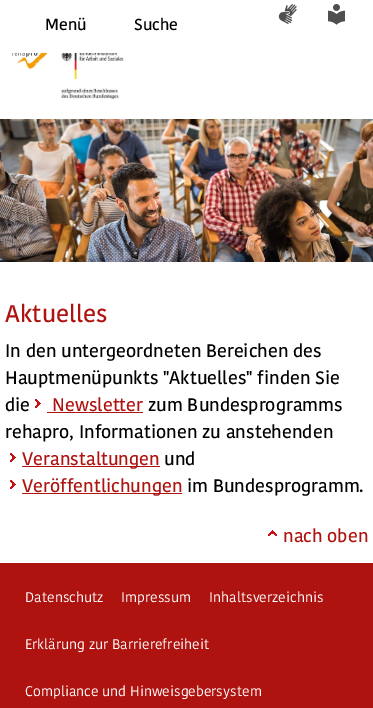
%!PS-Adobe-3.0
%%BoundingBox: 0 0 373 708
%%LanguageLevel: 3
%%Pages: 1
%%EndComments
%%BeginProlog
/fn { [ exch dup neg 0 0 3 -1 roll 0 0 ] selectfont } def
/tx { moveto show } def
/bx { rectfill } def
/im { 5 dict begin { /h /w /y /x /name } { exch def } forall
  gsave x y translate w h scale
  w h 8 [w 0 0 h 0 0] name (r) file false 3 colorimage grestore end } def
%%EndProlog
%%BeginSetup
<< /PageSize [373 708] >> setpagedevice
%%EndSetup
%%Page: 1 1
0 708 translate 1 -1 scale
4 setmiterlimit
1 setgray
0 0 373 708 bx
/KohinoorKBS-Medium 16 fn
0 setgray
(Menü) 45 30 tx
(Suche) 134 30 tx
(image0.raw) 278 4 19 20 im
(image1.raw) 328 4 17 21 im
(image2.raw) 12 53 39 16 im
(image3.raw) 61 53 63 46 im
(image4.raw) 0 119 373 143 im
/KohinoorKBS-Medium 24 fn
0.682 0.075 0.059 setrgbcolor
(Aktuelles) 5 322 tx
/KohinoorKBS-Medium 18 fn
0 setgray
(In den untergeordneten Bereichen des) 5 357 tx
(Hauptmenüpunkts "Aktuelles" finden Sie) 5 384 tx
(die) 5 411 tx
(image5.raw) 35 399 6 9 im
0.682 0.075 0.059 setrgbcolor
(Newsletter) 52 411 tx
47 412 96 1 bx
0 setgray
(zum Bundesprogramms) 148 411 tx
(rehapro, Informationen zu anstehenden) 5 438 tx
(image5.raw) 10 453 6 9 im
0.682 0.075 0.059 setrgbcolor
22 466 138 1 bx
(Veranstaltungen) 22 465 tx
0 setgray
(und) 164 465 tx
(image5.raw) 10 480 6 9 im
0.682 0.075 0.059 setrgbcolor
22 493 160 1 bx
(Veröffentlichungen) 22 492 tx
0 setgray
(im Bundesprogramm.) 187 492 tx
(image6.raw) 268 530 9 6 im
0.682 0.075 0.059 setrgbcolor
(nach oben) 283 542 tx
0 563 373 145 bx
/KohinoorKBS-Regular 14 fn
1 setgray
(Datenschutz) 25 602 tx
(Impressum) 121 602 tx
(Inhaltsverzeichnis) 209 602 tx
(Erklärung zur Barrierefreiheit) 25 649 tx
(Compliance und Hinweisgebersystem) 25 696 tx
showpage
%%EOF
